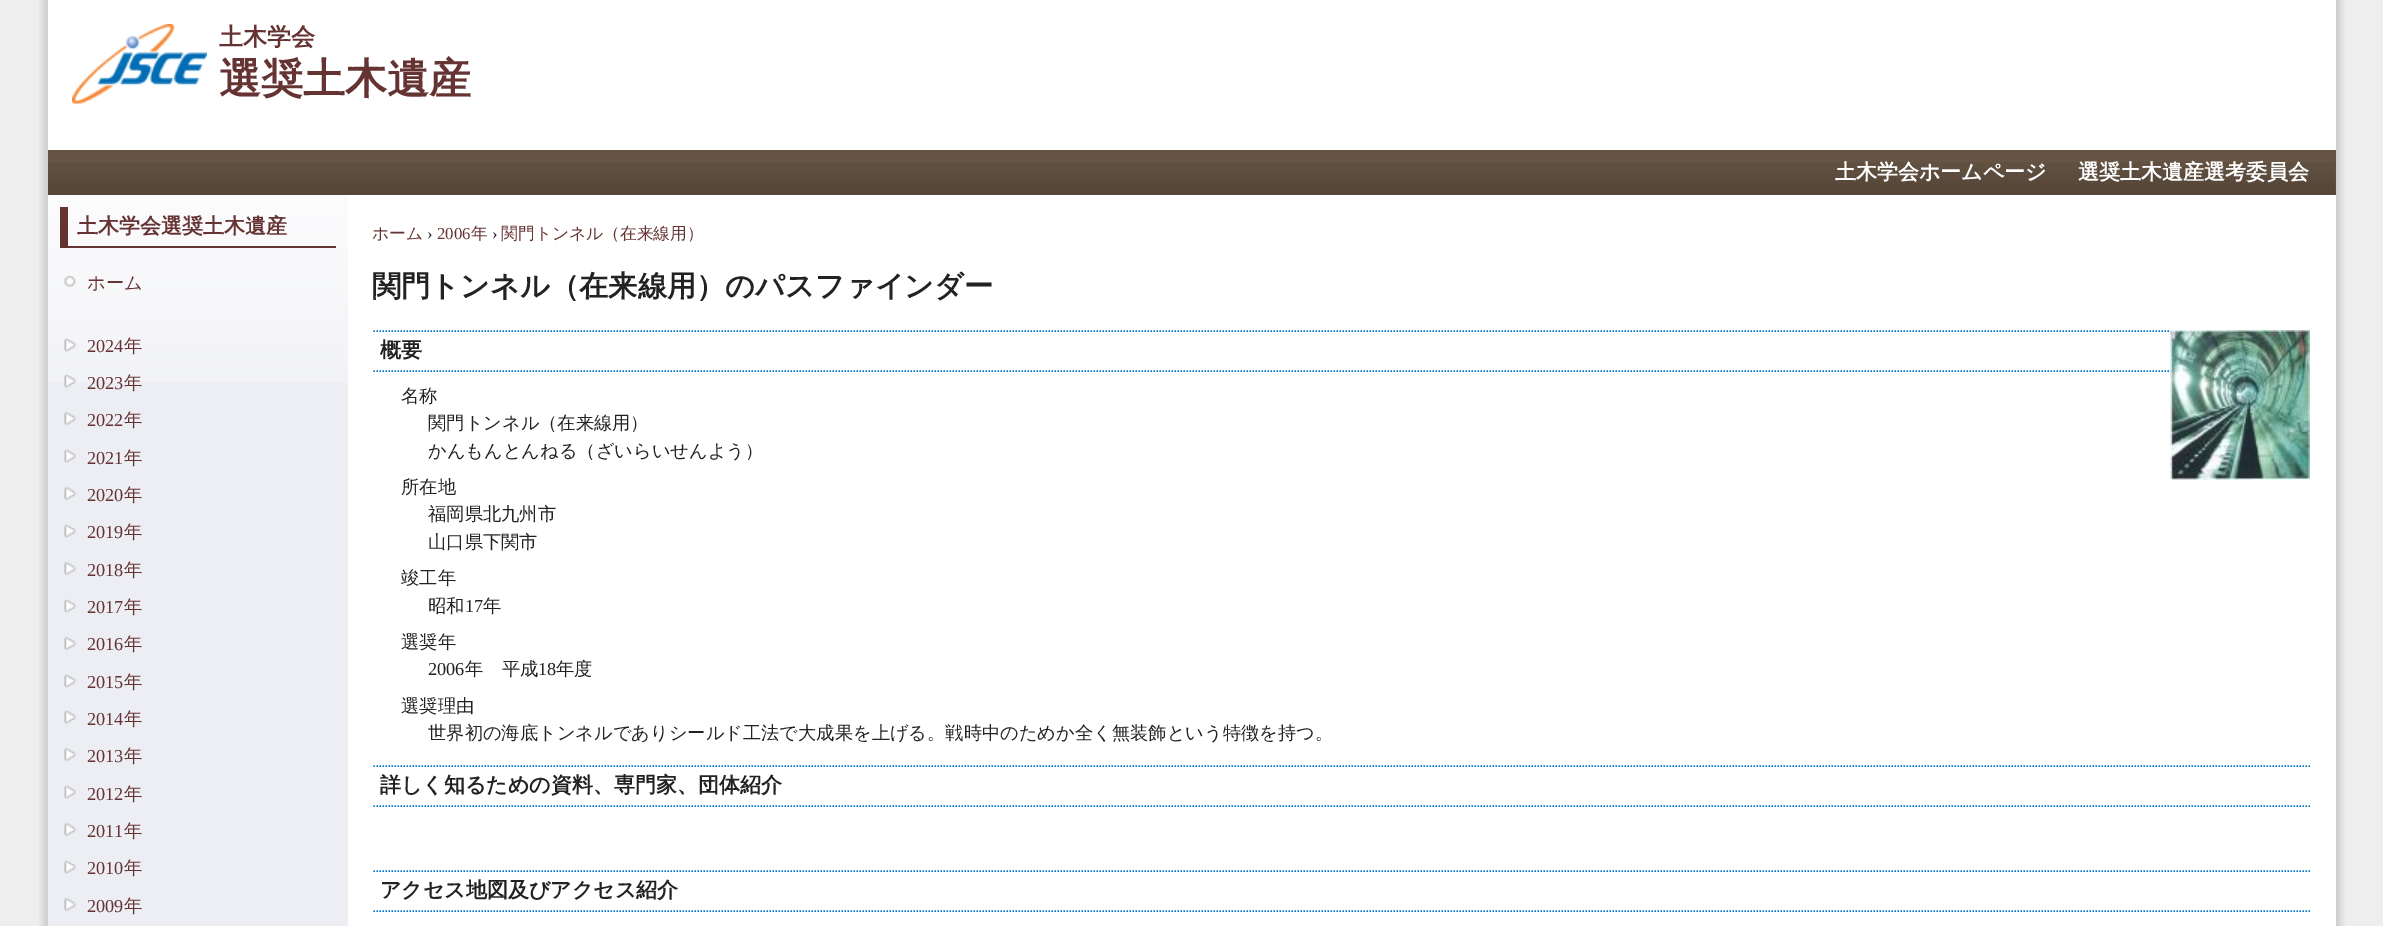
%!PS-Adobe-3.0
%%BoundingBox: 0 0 2383 926
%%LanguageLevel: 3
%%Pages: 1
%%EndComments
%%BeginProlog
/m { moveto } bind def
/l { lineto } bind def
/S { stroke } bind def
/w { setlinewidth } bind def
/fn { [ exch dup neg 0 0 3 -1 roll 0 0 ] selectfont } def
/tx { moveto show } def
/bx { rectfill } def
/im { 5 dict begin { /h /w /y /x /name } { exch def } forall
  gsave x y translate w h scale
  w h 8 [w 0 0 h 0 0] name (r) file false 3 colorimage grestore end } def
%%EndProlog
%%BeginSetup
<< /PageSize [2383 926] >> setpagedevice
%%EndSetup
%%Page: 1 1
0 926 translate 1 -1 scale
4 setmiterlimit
0.933 setgray
0 0 2383 926 bx
(image0.raw) 39 0 9 926 im
(image1.raw) 2336 0 47 926 im
1 setgray
48 0 2288 150 bx
(image2.raw) 72 24 135 80 im
/WenQuanYiZenHei-Bold 24 fn
0.4 0.2 0.2 setrgbcolor
(土木学会) 219 45 tx
/WenQuanYiZenHei-Bold 42 fn
(選奨土木遺産) 219 93 tx
0.4 0.333 0.267 setrgbcolor
48 150 2288 45 bx
(image3.raw) 48 162 2288 33 im
/WenQuanYiZenHei-Bold 21 fn
1 setgray
(土木学会ホームページ) 1835 179 tx
(選奨土木遺産選考委員会) 2078 179 tx
0.929 0.933 0.957 setrgbcolor
48 383 300 543 bx
(image4.raw) 48 195 300 188 im
0.4 0.2 0.2 setrgbcolor
60 246 276 2 bx
60 207 8 41 bx
(土木学会選奨土木遺産) 77 233 tx
(image5.raw) 64 275 12 12 im
/WenQuanYiZenHei-Medium 18.25 fn
(ホーム) 87 289 tx
(image6.raw) 64 337 13 16 im
/LiberationSerif-Regular 18.25 fn
(2024) 87 352 tx
/WenQuanYiZenHei-Medium 18.25 fn
(年) 124 352 tx
(image7.raw) 64 373 13 15 im
/LiberationSerif-Regular 18.25 fn
(2023) 87 389 tx
/WenQuanYiZenHei-Medium 18.25 fn
(年) 124 389 tx
(image8.raw) 64 411 13 15 im
/LiberationSerif-Regular 18.25 fn
(2022) 87 426 tx
/WenQuanYiZenHei-Medium 18.25 fn
(年) 124 426 tx
(image9.raw) 64 449 13 14 im
/LiberationSerif-Regular 18.25 fn
(2021) 87 464 tx
/WenQuanYiZenHei-Medium 18.25 fn
(年) 124 464 tx
(image8.raw) 64 486 13 15 im
/LiberationSerif-Regular 18.25 fn
(2020) 87 501 tx
/WenQuanYiZenHei-Medium 18.25 fn
(年) 124 501 tx
(image9.raw) 64 524 13 14 im
/LiberationSerif-Regular 18.25 fn
(2019) 87 538 tx
/WenQuanYiZenHei-Medium 18.25 fn
(年) 124 538 tx
(image8.raw) 64 561 13 15 im
/LiberationSerif-Regular 18.25 fn
(2018) 87 576 tx
/WenQuanYiZenHei-Medium 18.25 fn
(年) 124 576 tx
(image9.raw) 64 599 13 14 im
/LiberationSerif-Regular 18.25 fn
(2017) 87 613 tx
/WenQuanYiZenHei-Medium 18.25 fn
(年) 124 613 tx
(image8.raw) 64 636 13 15 im
/LiberationSerif-Regular 18.25 fn
(2016) 87 650 tx
/WenQuanYiZenHei-Medium 18.25 fn
(年) 124 650 tx
(image9.raw) 64 674 13 14 im
/LiberationSerif-Regular 18.25 fn
(2015) 87 688 tx
/WenQuanYiZenHei-Medium 18.25 fn
(年) 124 688 tx
(image9.raw) 64 710 13 14 im
/LiberationSerif-Regular 18.25 fn
(2014) 87 725 tx
/WenQuanYiZenHei-Medium 18.25 fn
(年) 124 725 tx
(image8.raw) 64 747 13 15 im
/LiberationSerif-Regular 18.25 fn
(2013) 87 762 tx
/WenQuanYiZenHei-Medium 18.25 fn
(年) 124 762 tx
(image9.raw) 64 785 13 14 im
/LiberationSerif-Regular 18.25 fn
(2012) 87 800 tx
/WenQuanYiZenHei-Medium 18.25 fn
(年) 124 800 tx
(image8.raw) 64 822 13 15 im
/LiberationSerif-Regular 18.25 fn
(2011) 87 837 tx
/WenQuanYiZenHei-Medium 18.25 fn
(年) 124 837 tx
(image9.raw) 64 860 13 14 im
/LiberationSerif-Regular 18.25 fn
(2010) 87 874 tx
/WenQuanYiZenHei-Medium 18.25 fn
(年) 124 874 tx
(image8.raw) 64 897 13 15 im
/LiberationSerif-Regular 18.25 fn
(2009) 87 912 tx
/WenQuanYiZenHei-Medium 18.25 fn
(年) 124 912 tx
1 setgray
348 195 1988 731 bx
/WenQuanYiZenHei-Medium 16.75 fn
0.4 0.2 0.2 setrgbcolor
(ホーム) 372 239 tx
/LiberationSerif-Regular 16.75 fn
0.133 setgray
(›) 427 239 tx
0.4 0.2 0.2 setrgbcolor
(2006) 437 239 tx
/WenQuanYiZenHei-Medium 16.75 fn
(年) 471 239 tx
/LiberationSerif-Regular 16.75 fn
0.133 setgray
(›) 492 239 tx
/WenQuanYiZenHei-Medium 16.75 fn
0.4 0.2 0.2 setrgbcolor
(関門トンネル（在来線用）) 501 239 tx
/WenQuanYiZenHei-Bold 29.2 fn
0.133 setgray
(関門トンネル（在来線用）のパスファインダー) 372 296 tx
0 0.467 0.8 setrgbcolor
1.5 w
[1.5 1.5] 0 setdash
373.5 331 m 2310 331 l S
373.5 371 m 2310 371 l S
/WenQuanYiZenHei-Bold 21 fn
0.133 setgray
(概要) 380 357 tx
/WenQuanYiZenHei-Medium 18.25 fn
(名称) 401 402 tx
(関門トンネル（在来線用）) 428 429 tx
(かんもんとんねる（ざいらいせんよう）) 428 457 tx
(所在地) 401 493 tx
(福岡県北九州市) 428 520 tx
(山口県下関市) 428 548 tx
(竣工年) 401 584 tx
(昭和) 428 612 tx
/LiberationSerif-Regular 18.25 fn
(17) 465 612 tx
/WenQuanYiZenHei-Medium 18.25 fn
(年) 483 612 tx
(選奨年) 401 648 tx
/LiberationSerif-Regular 18.25 fn
(2006) 428 675 tx
/WenQuanYiZenHei-Medium 18.25 fn
(年　平成) 465 675 tx
/LiberationSerif-Regular 18.25 fn
(18) 538 675 tx
/WenQuanYiZenHei-Medium 18.25 fn
(年度) 556 675 tx
(選奨理由) 401 712 tx
(世界初の海底トンネルでありシールド工法で大成果を上げる。戦時中のためか全く無装飾という特徴を持つ。) 428 739 tx
0 0.467 0.8 setrgbcolor
373.5 766 m 2310 766 l S
373.5 806 m 2310 806 l S
/WenQuanYiZenHei-Bold 21 fn
0.133 setgray
(詳しく知るための資料、専門家、団体紹介) 380 792 tx
0 0.467 0.8 setrgbcolor
373.5 871 m 2310 871 l S
373.5 911 m 2310 911 l S
0.133 setgray
(アクセス地図及びアクセス紹介) 380 897 tx
(image10.raw) 2170 330 140 150 im
showpage
%%EOF
